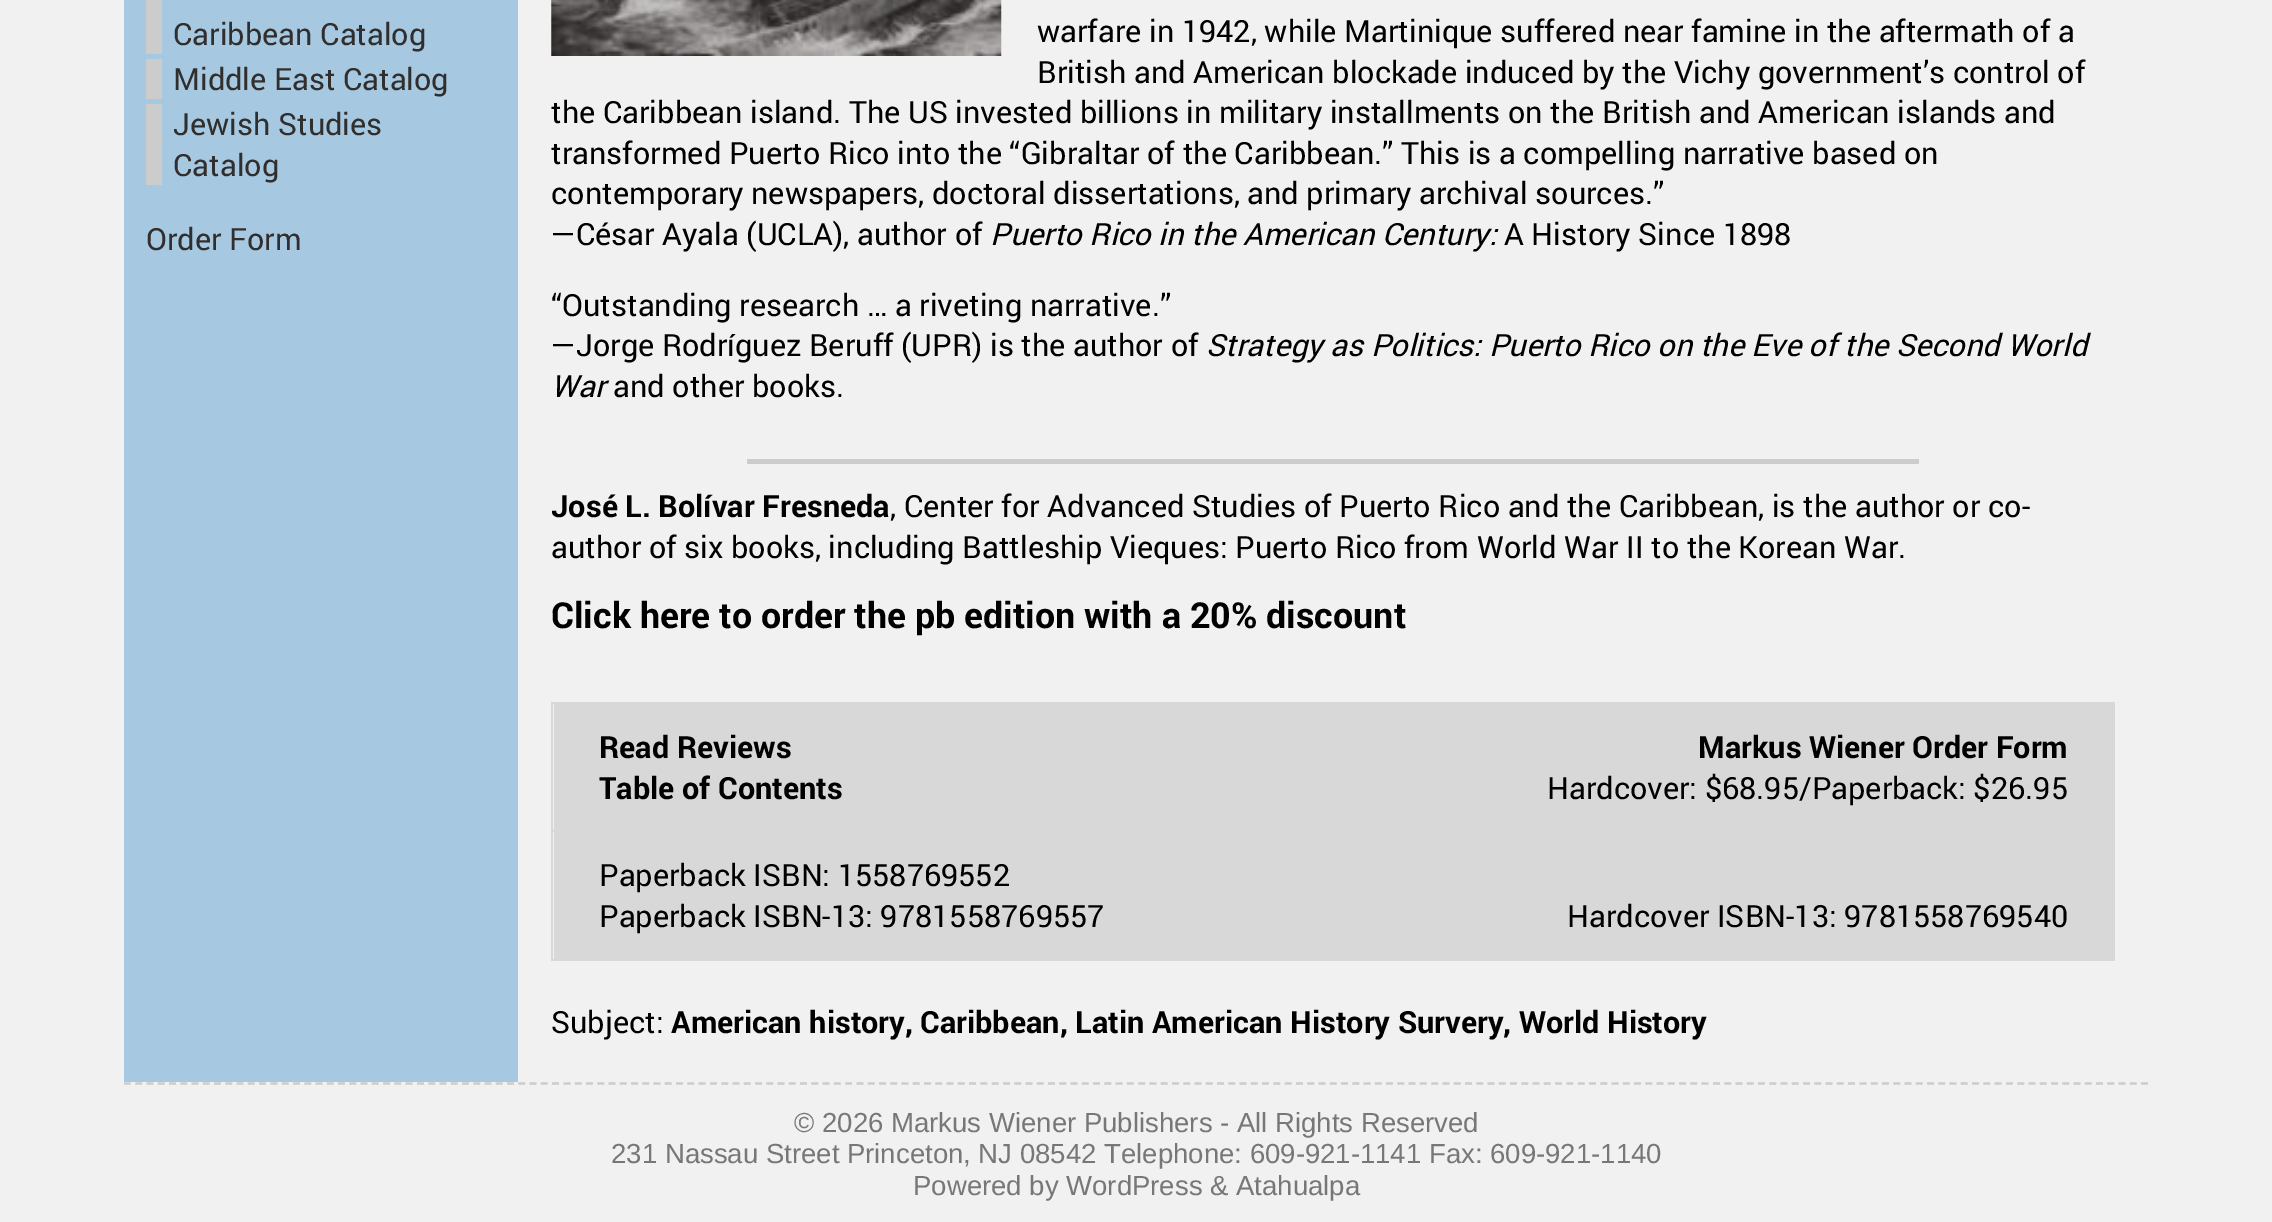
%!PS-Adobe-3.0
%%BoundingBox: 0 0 2272 1222
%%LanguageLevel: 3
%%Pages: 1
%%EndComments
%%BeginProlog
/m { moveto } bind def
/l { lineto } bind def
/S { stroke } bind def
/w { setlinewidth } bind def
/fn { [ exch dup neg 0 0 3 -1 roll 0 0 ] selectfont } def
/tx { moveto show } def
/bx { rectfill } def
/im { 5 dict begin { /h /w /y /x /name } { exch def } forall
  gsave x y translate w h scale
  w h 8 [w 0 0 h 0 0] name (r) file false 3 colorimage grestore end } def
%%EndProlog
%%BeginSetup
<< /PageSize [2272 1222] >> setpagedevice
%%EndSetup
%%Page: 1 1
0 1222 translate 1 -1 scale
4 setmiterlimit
0.945 setgray
0 0 2272 1222 bx
0.651 0.788 0.882 setrgbcolor
124 0 394 1082 bx
0.8 setgray
146 0 16 54 bx
/roboto-Regular 30.6 fn
0.192 0.18 0.18 setrgbcolor
(Caribbean Catalog) 173 45 tx
0.8 setgray
146 59 16 40 bx
0.192 0.18 0.18 setrgbcolor
(Middle East Catalog) 173 90 tx
0.8 setgray
146 104 16 81 bx
0.192 0.18 0.18 setrgbcolor
(Jewish Studies) 173 135 tx
(Catalog) 173 176 tx
(Order Form) 146 250 tx
(image0.raw) 551 0 451 56 im
0 setgray
(warfare in 1942, while Martinique suffered near famine in the aftermath of a) 1037 42 tx
(British and American blockade induced by the Vichy government’s control of) 1037 83 tx
(the Caribbean island. The US invested billions in military installments on the British and American islands and) 551 123 tx
(transformed Puerto Rico into the “Gibraltar of the Caribbean.” This is a compelling narrative based on) 551 164 tx
(contemporary newspapers, doctoral dissertations, and primary archival sources.”) 551 204 tx
(—César Ayala \(UCLA\), author of) 551 245 tx
/roboto-Italic 30.6 fn
(Puerto Rico in the American Century:) 990 245 tx
/roboto-Regular 30.6 fn
(A History Since 1898) 1504 245 tx
(“Outstanding research … a riveting narrative.”) 551 316 tx
(—Jorge Rodríguez Beruff \(UPR\) is the author of) 551 356 tx
/roboto-Italic 30.6 fn
(Strategy as Politics: Puerto Rico on the Eve of the Second World) 1206 356 tx
(War) 551 397 tx
/roboto-Regular 30.6 fn
(and other books.) 613 397 tx
0.8 setgray
747 459 1172 5 bx
/roboto-Bold 30.6 fn
0 setgray
(José L. Bolívar Fresneda) 551 517 tx
/roboto-Regular 30.6 fn
(, Center for Advanced Studies of Puerto Rico and the Caribbean, is the author or co-) 890 517 tx
(author of six books, including Battleship Vieques: Puerto Rico from World War II to the Korean War.) 551 558 tx
/roboto-Bold 35.8 fn
(Click here to order the pb edition with a 20% discount) 551 628 tx
0.847 setgray
554 704 769 126 bx
1323 702 792 128 bx
551 702 774 2 bx
1323 830 790 129 bx
551 830 774 2 bx
2113 830 2 131 bx
551 959 1564 2 bx
551 830 2 131 bx
551 702 2 131 bx
/roboto-Bold 30.6 fn
0 setgray
(Read Reviews) 599 758 tx
(Table of Contents) 599 799 tx
(Markus Wiener Order Form) 1698 758 tx
/roboto-Regular 30.6 fn
(Hardcover: $68.95/Paperback: $26.95) 1547 799 tx
0.847 setgray
554 832 769 127 bx
0 setgray
(Paperback ISBN: 1558769552) 599 886 tx
(Paperback ISBN-13: 9781558769557) 599 927 tx
(Hardcover ISBN-13: 9781558769540) 1567 927 tx
(Subject:) 551 1033 tx
/roboto-Bold 30.6 fn
(American history, Caribbean, Latin American History Survery, World History) 671 1033 tx
0.8 setgray
2.2 w
[6.75 4.52] 0 setdash
124 1083.5 m 2149 1083.5 l S
/LiberationSans-Regular 27.55 fn
0.467 setgray
(© 2026 Markus Wiener Publishers - All Rights Reserved) 794 1132 tx
(231 Nassau Street Princeton, NJ 08542 Telephone: 609-921-1141 Fax: 609-921-1140) 611 1163 tx
(Powered by WordPress & Atahualpa) 913 1195 tx
showpage
%%EOF
